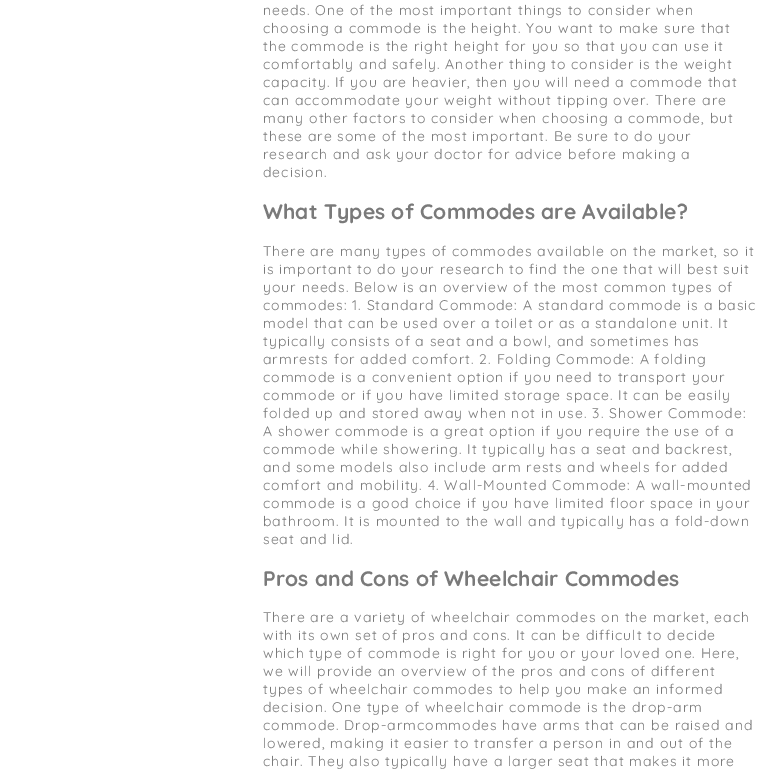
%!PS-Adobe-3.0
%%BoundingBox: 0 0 773 779
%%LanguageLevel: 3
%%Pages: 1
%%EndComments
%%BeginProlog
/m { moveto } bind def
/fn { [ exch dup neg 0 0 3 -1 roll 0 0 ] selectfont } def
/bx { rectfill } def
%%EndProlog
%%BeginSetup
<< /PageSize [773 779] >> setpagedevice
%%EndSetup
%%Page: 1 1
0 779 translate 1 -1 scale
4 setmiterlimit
1 setgray
0 0 773 779 bx
/Quicksand-Regular 14 fn
0.478 setgray
263 15 m 1 0 (needs. One of the most important things to consider when) ashow
263 33 m 1 0 (choosing a commode is the height. You want to make sure that) ashow
263 51 m 1 0 (the commode is the right height for you so that you can use it) ashow
263 69 m 1 0 (comfortably and safely. Another thing to consider is the weight) ashow
263 87 m 1 0 (capacity. If you are heavier, then you will need a commode that) ashow
263 105 m 1 0 (can accommodate your weight without tipping over. There are) ashow
263 123 m 1 0 (many other factors to consider when choosing a commode, but) ashow
263 141 m 1 0 (these are some of the most important. Be sure to do your) ashow
263 159 m 1 0 (research and ask your doctor for advice before making a) ashow
263 177 m 1 0 (decision.) ashow
/Quicksand-Bold 21 fn
263 219 m 0.15 0 (What Types of Commodes are Available?) ashow
/Quicksand-Regular 14 fn
263 256 m 1 0 (There are many types of commodes available on the market, so it) ashow
263 274 m 1 0 (is important to do your research to find the one that will best suit) ashow
263 292 m 1 0 (your needs. Below is an overview of the most common types of) ashow
263 310 m 1 0 (commodes: 1. Standard Commode: A standard commode is a basic) ashow
263 328 m 1 0 (model that can be used over a toilet or as a standalone unit. It) ashow
263 346 m 1 0 (typically consists of a seat and a bowl, and sometimes has) ashow
263 364 m 1 0 (armrests for added comfort. 2. Folding Commode: A folding) ashow
263 382 m 1 0 (commode is a convenient option if you need to transport your) ashow
263 400 m 1 0 (commode or if you have limited storage space. It can be easily) ashow
263 418 m 1 0 (folded up and stored away when not in use. 3. Shower Commode:) ashow
263 436 m 1 0 (A shower commode is a great option if you require the use of a) ashow
263 454 m 1 0 (commode while showering. It typically has a seat and backrest,) ashow
263 472 m 1 0 (and some models also include arm rests and wheels for added) ashow
263 490 m 1 0 (comfort and mobility. 4. Wall-Mounted Commode: A wall-mounted) ashow
263 508 m 1 0 (commode is a good choice if you have limited floor space in your) ashow
263 526 m 1 0 (bathroom. It is mounted to the wall and typically has a fold-down) ashow
263 544 m 1 0 (seat and lid.) ashow
/Quicksand-Bold 21 fn
263 586 m 0.15 0 (Pros and Cons of Wheelchair Commodes) ashow
/Quicksand-Regular 14 fn
263 622 m 1 0 (There are a variety of wheelchair commodes on the market, each) ashow
263 640 m 1 0 (with its own set of pros and cons. It can be difficult to decide) ashow
263 658 m 1 0 (which type of commode is right for you or your loved one. Here,) ashow
263 676 m 1 0 (we will provide an overview of the pros and cons of different) ashow
263 694 m 1 0 (types of wheelchair commodes to help you make an informed) ashow
263 712 m 1 0 (decision. One type of wheelchair commode is the drop-arm) ashow
263 730 m 1 0 (commode. Drop-armcommodes have arms that can be raised and) ashow
263 748 m 1 0 (lowered, making it easier to transfer a person in and out of the) ashow
263 766 m 1 0 (chair. They also typically have a larger seat that makes it more) ashow
showpage
%%EOF
